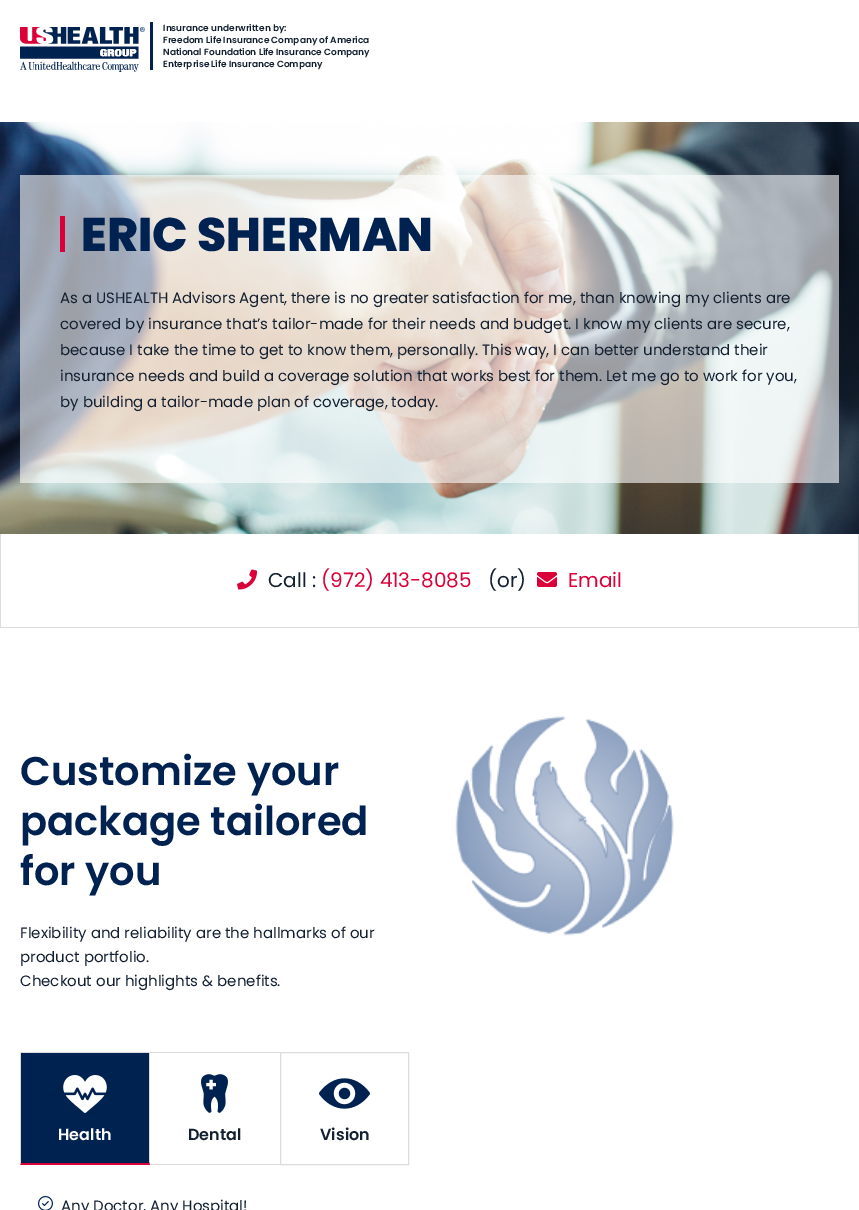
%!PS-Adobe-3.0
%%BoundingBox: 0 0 859 1210
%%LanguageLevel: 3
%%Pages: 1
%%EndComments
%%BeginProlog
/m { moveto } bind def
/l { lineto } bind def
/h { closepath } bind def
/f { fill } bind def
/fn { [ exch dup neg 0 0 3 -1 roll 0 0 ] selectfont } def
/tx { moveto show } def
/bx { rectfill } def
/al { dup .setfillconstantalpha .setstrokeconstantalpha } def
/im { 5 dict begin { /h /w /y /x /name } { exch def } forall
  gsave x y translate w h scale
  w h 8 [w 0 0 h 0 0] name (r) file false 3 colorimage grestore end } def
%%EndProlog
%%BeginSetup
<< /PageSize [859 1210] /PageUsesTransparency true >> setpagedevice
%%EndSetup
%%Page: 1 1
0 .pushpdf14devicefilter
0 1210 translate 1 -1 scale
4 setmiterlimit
1 setgray
0 0 859 1210 bx
(image0.raw) 20 27 125 45 im
0 0.133 0.314 setrgbcolor
150 22 3 48 bx
/Poppins-SemiBold 9 fn
0.075 0.125 0.192 setrgbcolor
(Insurance underwritten by:) 163 31 tx
(Freedom Life Insurance Company of America) 163 43 tx
(National Foundation Life Insurance Company) 163 55 tx
(Enterprise Life Insurance Company) 163 67 tx
(image1.raw) 0 122 859 412 im
0.6 al
1 setgray
20 175 819 308 bx
1 al
0.859 0 0.216 setrgbcolor
60 216 5 36 bx
/Poppins-ExtraBold 47 fn
0 0.133 0.314 setrgbcolor
(ERIC SHERMAN) 81 251 tx
/Poppins-Regular 15 fn
0.075 0.125 0.192 setrgbcolor
(As a USHEALTH Advisors Agent, there is no greater satisfaction for me, than knowing my clients are) 60 303 tx
(covered by insurance that’s tailor-made for their needs and budget. I know my clients are secure,) 60 329 tx
(because I take the time to get to know them, personally. This way, I can better understand their) 60 355 tx
(insurance needs and build a coverage solution that works best for them. Let me go to work for you,) 60 381 tx
(by building a tailor-made plan of coverage, today.) 60 407 tx
0.863 setgray
0 627 859 1 bx
858 534 1 93 bx
0 534 1 93 bx
(image2.raw) 237 569 20 21 im
/Poppins-Regular 20 fn
0.075 0.125 0.192 setrgbcolor
(Call :) 268 587 tx
0.859 0 0.216 setrgbcolor
(\(972\) 413-8085) 321 587 tx
0.075 0.125 0.192 setrgbcolor
(\(or\)) 488 587 tx
(image3.raw) 537 572 20 15 im
0.859 0 0.216 setrgbcolor
(Email) 568 587 tx
/Poppins-SemiBold 40 fn
0 0.133 0.314 setrgbcolor
(Customize your) 20 785 tx
(package tailored) 20 835 tx
(for you) 20 885 tx
/Poppins-Regular 15 fn
0.075 0.125 0.192 setrgbcolor
(Flexibility and reliability are the hallmarks of our) 20 938 tx
(product portfolio.) 20 962 tx
(Checkout our highlights & benefits.) 20 986 tx
0 0.133 0.314 setrgbcolor
21 1053 128 109 bx
0.863 setgray
20 1052 260 1 bx
150 1052 m 150 1165 l 149 1162 l 149 1053 l h f
0.859 0 0.216 setrgbcolor
150 1165 m 20 1165 l 21 1162 l 149 1162 l h f
0.863 setgray
20 1165 m 20 1052 l 21 1053 l 21 1162 l h f
(image4.raw) 63 1075 44 38 im
/Poppins-SemiBold 16 fn
1 setgray
(Health) 58 1140 tx
0 0.133 0.314 setrgbcolor
21 1162 128 1 bx
0.863 setgray
150 1164 130 1 bx
(image5.raw) 201 1074 27 39 im
0.075 0.125 0.192 setrgbcolor
(Dental) 188 1140 tx
0.863 setgray
280.5 1052.5 128 112 rectstroke
(image6.raw) 319 1078 51 31 im
0.075 0.125 0.192 setrgbcolor
(Vision) 320 1140 tx
(image7.raw) 38 1196 15 14 im
/Poppins-Regular 15 fn
(Any Doctor, Any Hospital!) 61 1211 tx
(image8.raw) 455 716 219 220 im
.poppdf14devicefilter showpage
%%EOF
